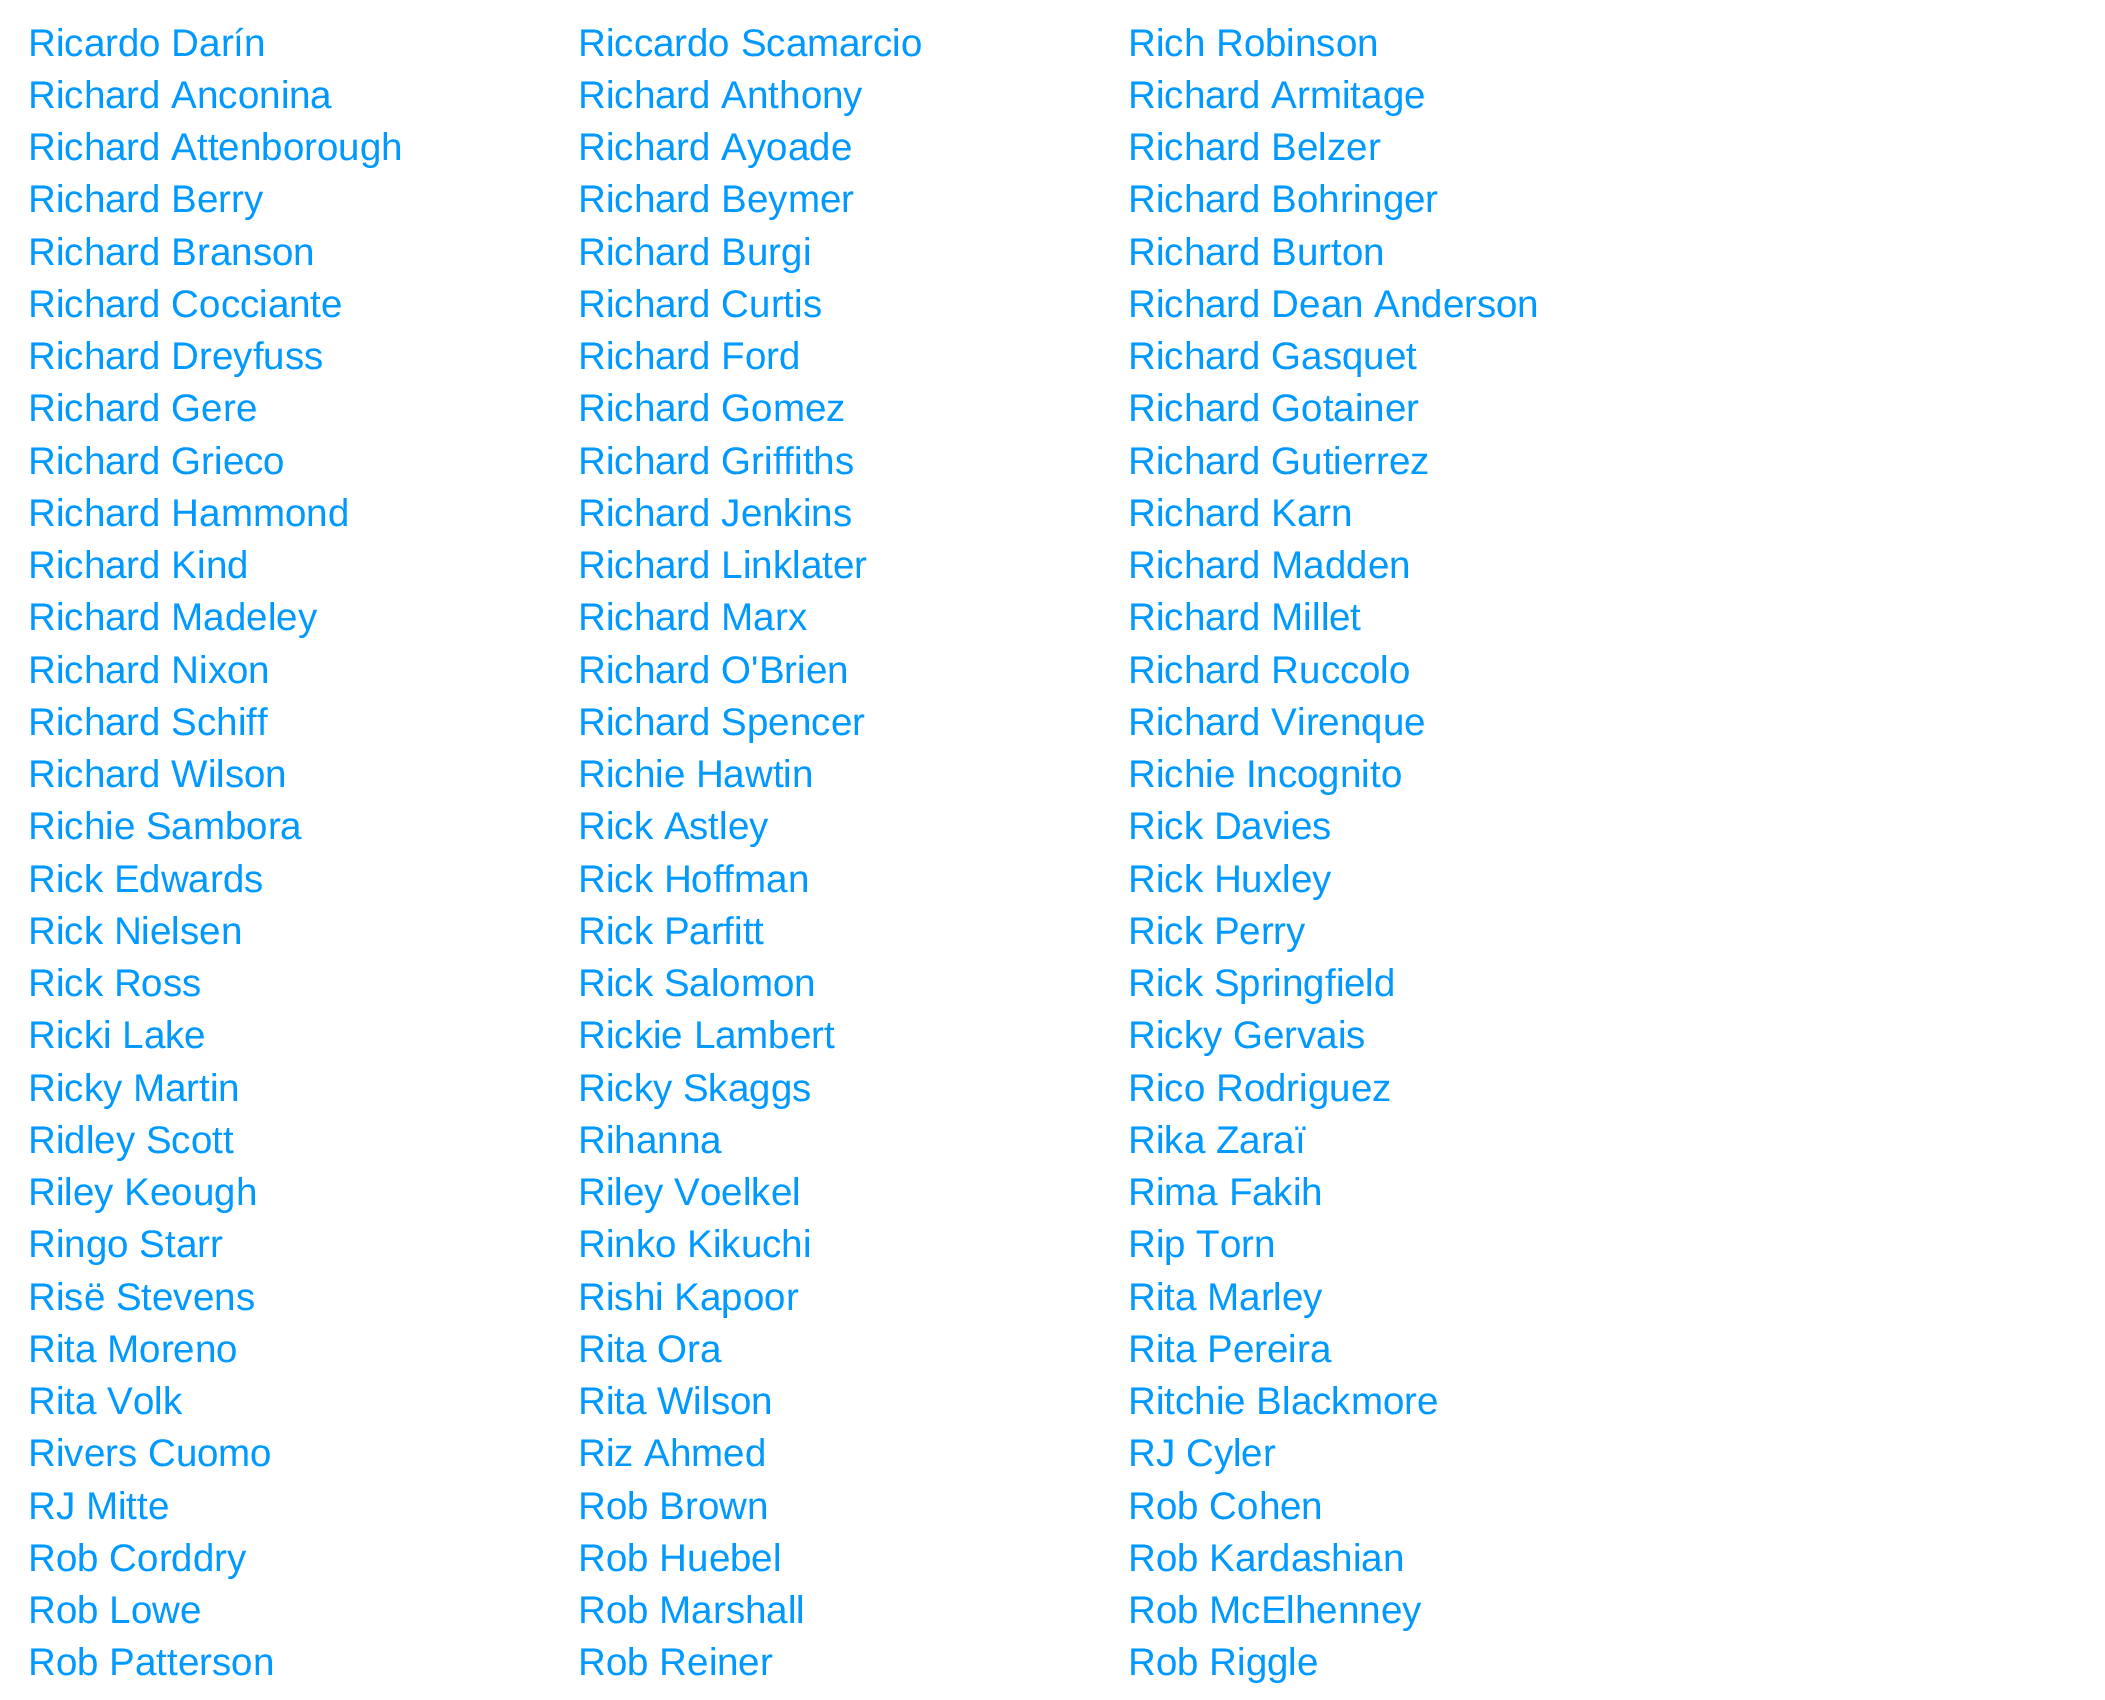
%!PS-Adobe-3.0
%%BoundingBox: 0 0 2105 1700
%%LanguageLevel: 3
%%Pages: 1
%%EndComments
%%BeginProlog
/fn { [ exch dup neg 0 0 3 -1 roll 0 0 ] selectfont } def
/tx { moveto show } def
/bx { rectfill } def
%%EndProlog
%%BeginSetup
<< /PageSize [2105 1700] >> setpagedevice
%%EndSetup
%%Page: 1 1
0 1700 translate 1 -1 scale
4 setmiterlimit
1 setgray
0 0 2105 1700 bx
/LiberationSans-Regular 38.5 fn
0 0.6 1 setrgbcolor
(Ricardo Darín) 28 56 tx
(Riccardo Scamarcio) 578 56 tx
(Rich Robinson) 1128 56 tx
(Richard Anconina) 28 108 tx
(Richard Anthony) 578 108 tx
(Richard Armitage) 1128 108 tx
(Richard Attenborough) 28 160 tx
(Richard Ayoade) 578 160 tx
(Richard Belzer) 1128 160 tx
(Richard Berry) 28 212 tx
(Richard Beymer) 578 212 tx
(Richard Bohringer) 1128 212 tx
(Richard Branson) 28 265 tx
(Richard Burgi) 578 265 tx
(Richard Burton) 1128 265 tx
(Richard Cocciante) 28 317 tx
(Richard Curtis) 578 317 tx
(Richard Dean Anderson) 1128 317 tx
(Richard Dreyfuss) 28 369 tx
(Richard Ford) 578 369 tx
(Richard Gasquet) 1128 369 tx
(Richard Gere) 28 421 tx
(Richard Gomez) 578 421 tx
(Richard Gotainer) 1128 421 tx
(Richard Grieco) 28 474 tx
(Richard Griffiths) 578 474 tx
(Richard Gutierrez) 1128 474 tx
(Richard Hammond) 28 526 tx
(Richard Jenkins) 578 526 tx
(Richard Karn) 1128 526 tx
(Richard Kind) 28 578 tx
(Richard Linklater) 578 578 tx
(Richard Madden) 1128 578 tx
(Richard Madeley) 28 630 tx
(Richard Marx) 578 630 tx
(Richard Millet) 1128 630 tx
(Richard Nixon) 28 683 tx
(Richard O'Brien) 578 683 tx
(Richard Ruccolo) 1128 683 tx
(Richard Schiff) 28 735 tx
(Richard Spencer) 578 735 tx
(Richard Virenque) 1128 735 tx
(Richard Wilson) 28 787 tx
(Richie Hawtin) 578 787 tx
(Richie Incognito) 1128 787 tx
(Richie Sambora) 28 839 tx
(Rick Astley) 578 839 tx
(Rick Davies) 1128 839 tx
(Rick Edwards) 28 892 tx
(Rick Hoffman) 578 892 tx
(Rick Huxley) 1128 892 tx
(Rick Nielsen) 28 944 tx
(Rick Parfitt) 578 944 tx
(Rick Perry) 1128 944 tx
(Rick Ross) 28 996 tx
(Rick Salomon) 578 996 tx
(Rick Springfield) 1128 996 tx
(Ricki Lake) 28 1048 tx
(Rickie Lambert) 578 1048 tx
(Ricky Gervais) 1128 1048 tx
(Ricky Martin) 28 1101 tx
(Ricky Skaggs) 578 1101 tx
(Rico Rodriguez) 1128 1101 tx
(Ridley Scott) 28 1153 tx
(Rihanna) 578 1153 tx
(Rika Zaraï) 1128 1153 tx
(Riley Keough) 28 1205 tx
(Riley Voelkel) 578 1205 tx
(Rima Fakih) 1128 1205 tx
(Ringo Starr) 28 1257 tx
(Rinko Kikuchi) 578 1257 tx
(Rip Torn) 1128 1257 tx
(Risë Stevens) 28 1310 tx
(Rishi Kapoor) 578 1310 tx
(Rita Marley) 1128 1310 tx
(Rita Moreno) 28 1362 tx
(Rita Ora) 578 1362 tx
(Rita Pereira) 1128 1362 tx
(Rita Volk) 28 1414 tx
(Rita Wilson) 578 1414 tx
(Ritchie Blackmore) 1128 1414 tx
(Rivers Cuomo) 28 1466 tx
(Riz Ahmed) 578 1466 tx
(RJ Cyler) 1128 1466 tx
(RJ Mitte) 28 1519 tx
(Rob Brown) 578 1519 tx
(Rob Cohen) 1128 1519 tx
(Rob Corddry) 28 1571 tx
(Rob Huebel) 578 1571 tx
(Rob Kardashian) 1128 1571 tx
(Rob Lowe) 28 1623 tx
(Rob Marshall) 578 1623 tx
(Rob McElhenney) 1128 1623 tx
(Rob Patterson) 28 1675 tx
(Rob Reiner) 578 1675 tx
(Rob Riggle) 1128 1675 tx
showpage
%%EOF
